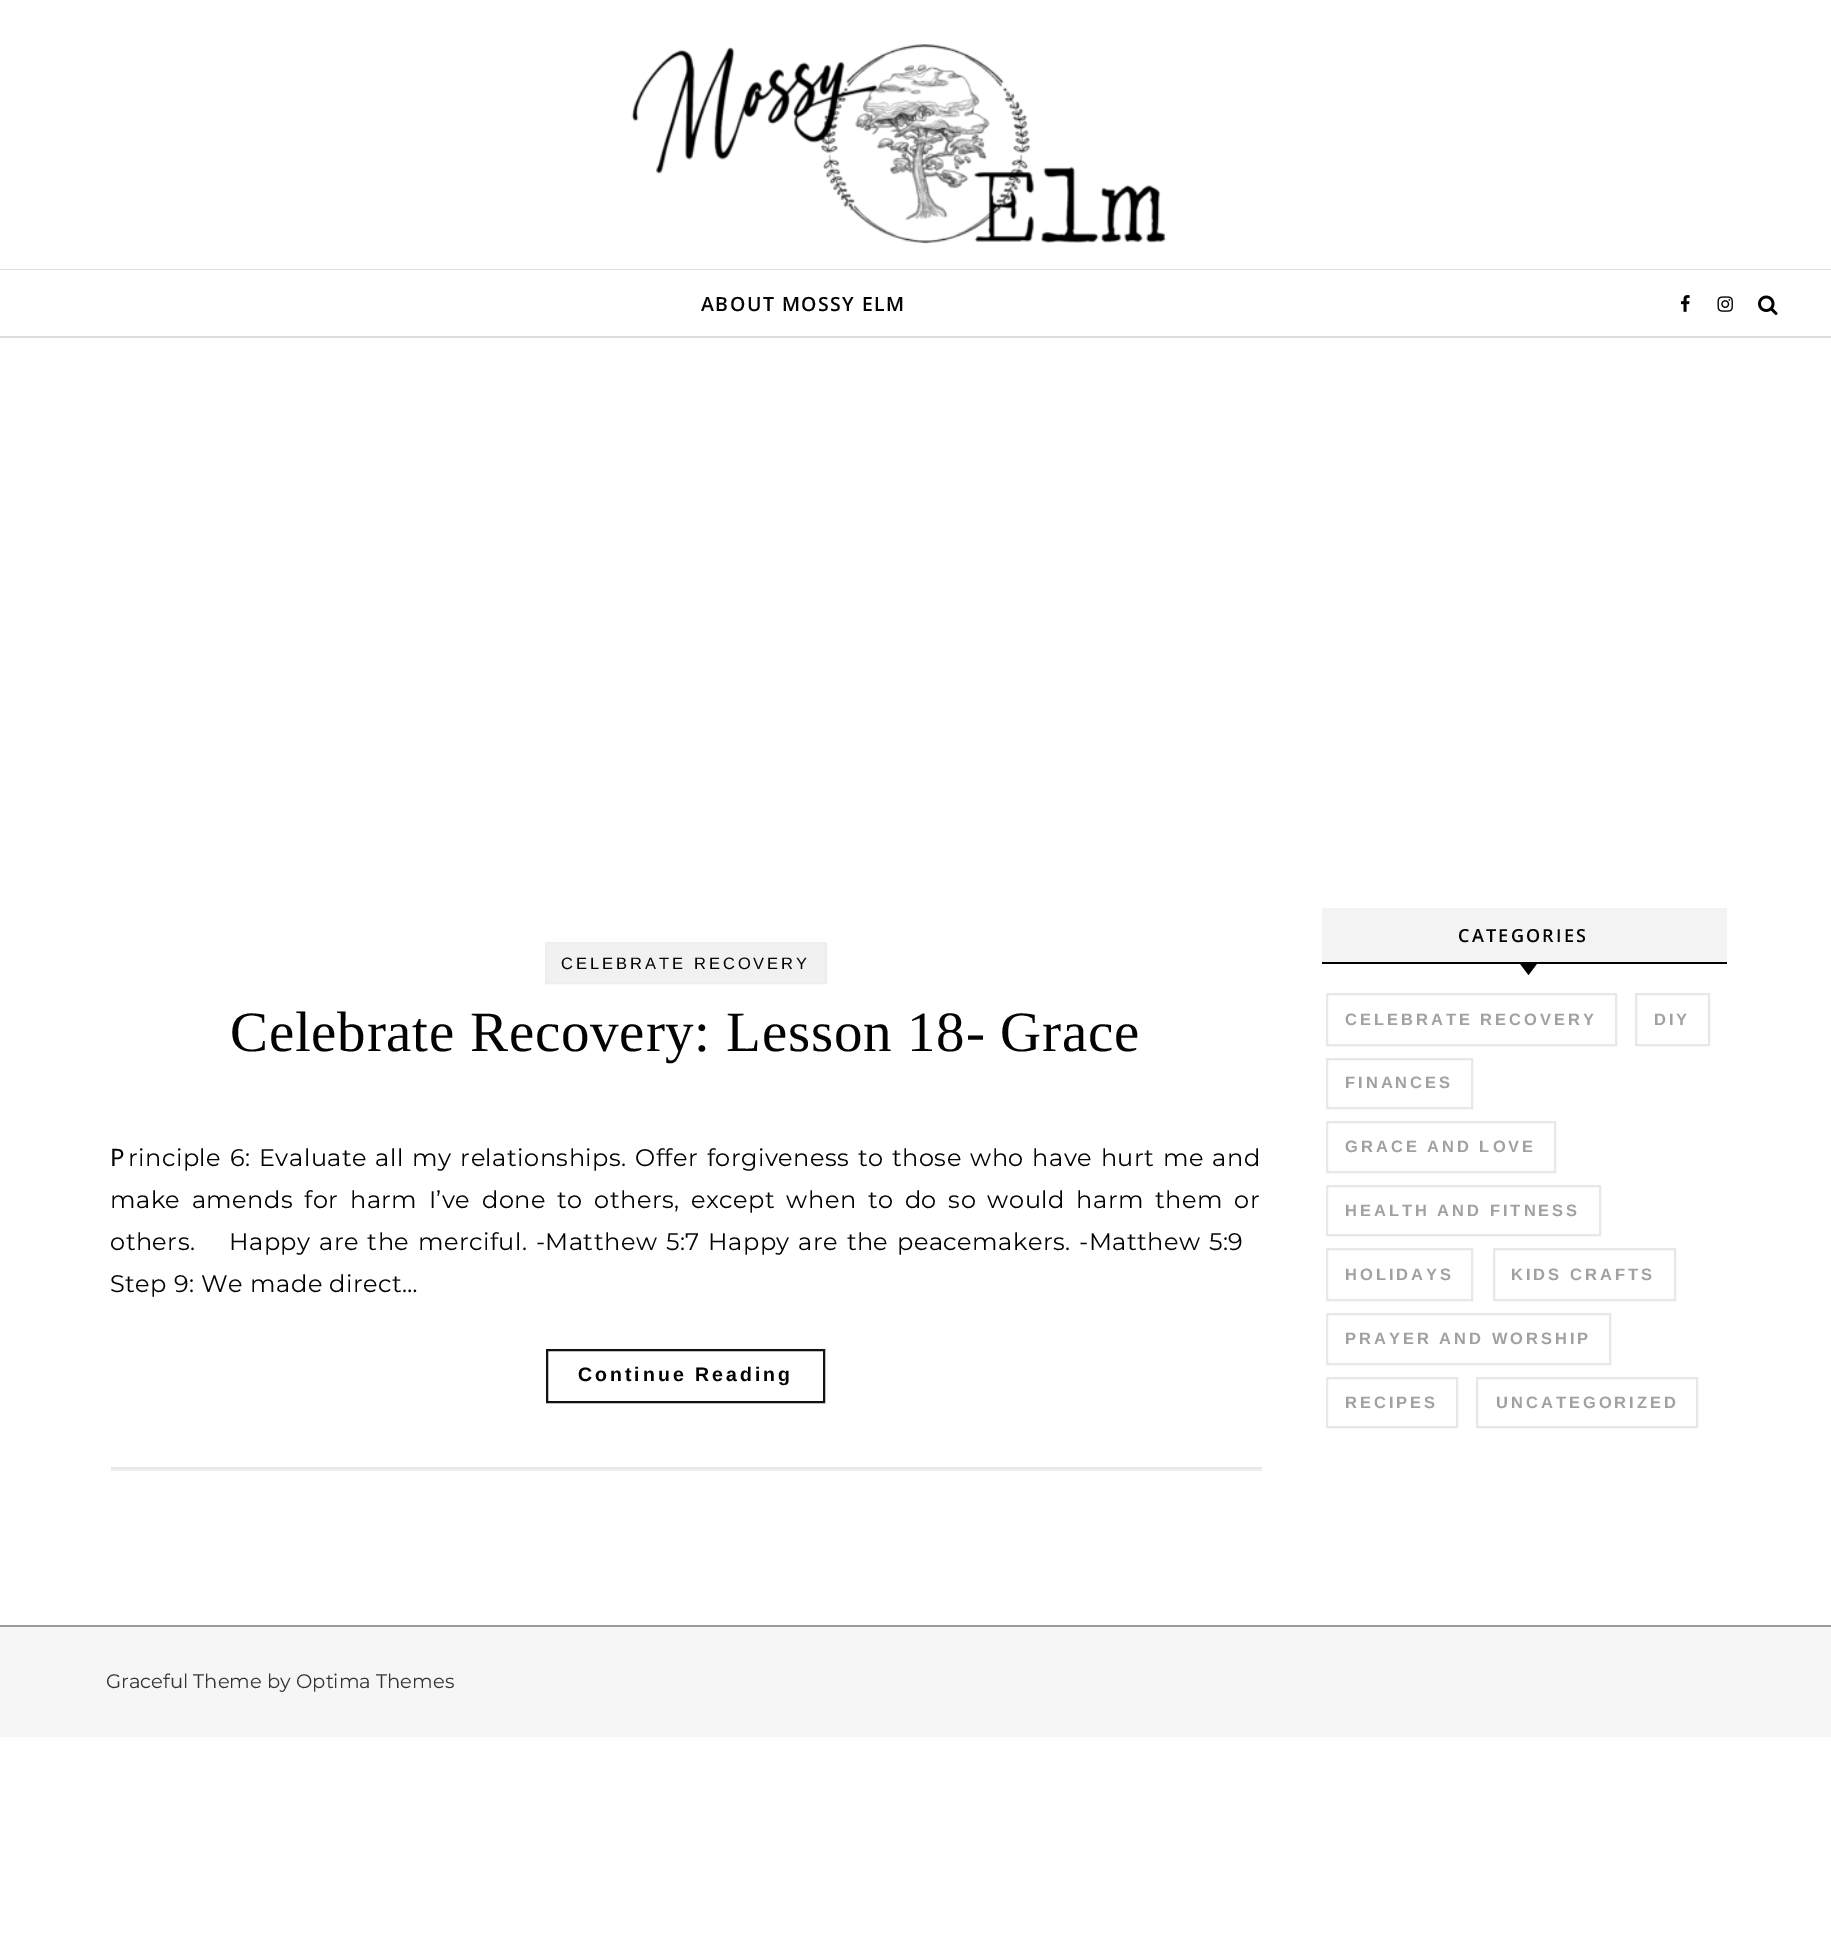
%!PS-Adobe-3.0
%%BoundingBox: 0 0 1831 1950
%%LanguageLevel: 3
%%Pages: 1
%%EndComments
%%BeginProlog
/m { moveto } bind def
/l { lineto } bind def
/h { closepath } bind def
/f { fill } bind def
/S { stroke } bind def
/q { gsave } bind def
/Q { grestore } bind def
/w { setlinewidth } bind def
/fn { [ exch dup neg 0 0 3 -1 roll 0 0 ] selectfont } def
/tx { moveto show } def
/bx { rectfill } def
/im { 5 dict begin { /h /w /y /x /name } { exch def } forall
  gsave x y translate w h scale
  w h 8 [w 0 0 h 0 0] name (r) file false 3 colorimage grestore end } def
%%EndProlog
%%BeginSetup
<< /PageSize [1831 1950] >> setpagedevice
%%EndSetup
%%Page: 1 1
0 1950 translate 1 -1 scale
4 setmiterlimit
1 setgray
0 0 1831 1950 bx
0.867 setgray
0 269 1831 1 bx
(image0.raw) 631 44 535 200 im
0 336 1831 2 bx
/OpenSans-SemiBold 19.5 fn
0.012 setgray
701 311 m 1.5 0 (ABOUT MOSSY ELM) ashow
(image1.raw) 1680 295 10 17 im
(image2.raw) 1717 296 16 16 im
(image3.raw) 1758 295 20 20 im
0.933 setgray
111 1469 1151 2 bx
0.945 setgray
546 943 m 826 943 l 826 983 l 546 983 l h q f Q
0.933 setgray
2 w
S
/LiberationSans-Regular 16.5 fn
0.012 setgray
561 969 m 3 0 (CELEBRATE RECOVERY) ashow
/LiberationSerif-Regular 57 fn
230 1051 m 0.75 0 (Celebrate Recovery: Lesson 18- Grace) ashow
/NotoSans-Regular 24 fn
110 1166 m 0.48 0 (P) ashow
/Montserrat-Thin 24 fn
128 1166 m 1.75 0 32 0.48 0 (rinciple 6: Evaluate all my relationships. Offer forgiveness to those who have hurt me and) awidthshow
110 1208 m 4.6 0 32 0.48 0 (make amends for harm I’ve done to others, except when to do so would harm them or) awidthshow
110 1250 m 1.7 0 32 0.48 0 (others.    Happy are the merciful. -Matthew 5:7 Happy are the peacemakers. -Matthew 5:9) awidthshow
110 1292 m 0.48 0 (Step 9: We made direct…) ashow
0.91 setgray
111 1467 1151 2 bx
0.067 setgray
547 1350 277 52 rectstroke
/LiberationSans-Bold 19.5 fn
0.012 setgray
578 1381 m 3 0 (Continue Reading) ashow
0.953 setgray
1322 908 405 54 bx
0 setgray
1322 962 405 2 bx
/OpenSans-SemiBold 18 fn
0.012 setgray
1458 942 m 2.25 0 (CATEGORIES) ashow
0 setgray
1519.5 963 m 1537.5 963 l 1528.5 975 l h f
0.91 setgray
1327 994 289 51 rectstroke
/LiberationSans-Bold 16.5 fn
0.631 setgray
1345 1025 m 3 0 (CELEBRATE RECOVERY) ashow
0.91 setgray
1636 994 73 51 rectstroke
0.631 setgray
1654 1025 m 3 0 (DIY) ashow
0.91 setgray
1327 1059 145 49 rectstroke
0.631 setgray
1345 1088 m 3 0 (FINANCES) ashow
0.91 setgray
1327 1122 228 50 rectstroke
0.631 setgray
1345 1152 m 3 0 (GRACE AND LOVE) ashow
0.91 setgray
1327 1186 273 49 rectstroke
0.631 setgray
1345 1216 m 3 0 (HEALTH AND FITNESS) ashow
0.91 setgray
1327 1249 145 51 rectstroke
0.631 setgray
1345 1280 m 3 0 (HOLIDAYS) ashow
0.91 setgray
1494 1249 181 51 rectstroke
0.631 setgray
1511 1280 m 3 0 (KIDS CRAFTS) ashow
0.91 setgray
1327 1314 283 50 rectstroke
0.631 setgray
1345 1344 m 3 0 (PRAYER AND WORSHIP) ashow
0.91 setgray
1327 1378 130 49 rectstroke
0.631 setgray
1345 1408 m 3 0 (RECIPES) ashow
0.91 setgray
1477 1378 220 49 rectstroke
0.631 setgray
1496 1408 m 3 0 (UNCATEGORIZED) ashow
0.965 setgray
0 1627 1831 110 bx
0.6 setgray
0 1625 1831 2 bx
q
107 1626 1620 111 rectclip
/Montserrat-Thin 19.5 fn
0.2 setgray
(Graceful Theme by) 106 1688 tx
Q
/Montserrat-Thin 19.5 fn
0.2 setgray
(Optima Themes) 296 1688 tx
showpage
%%EOF
